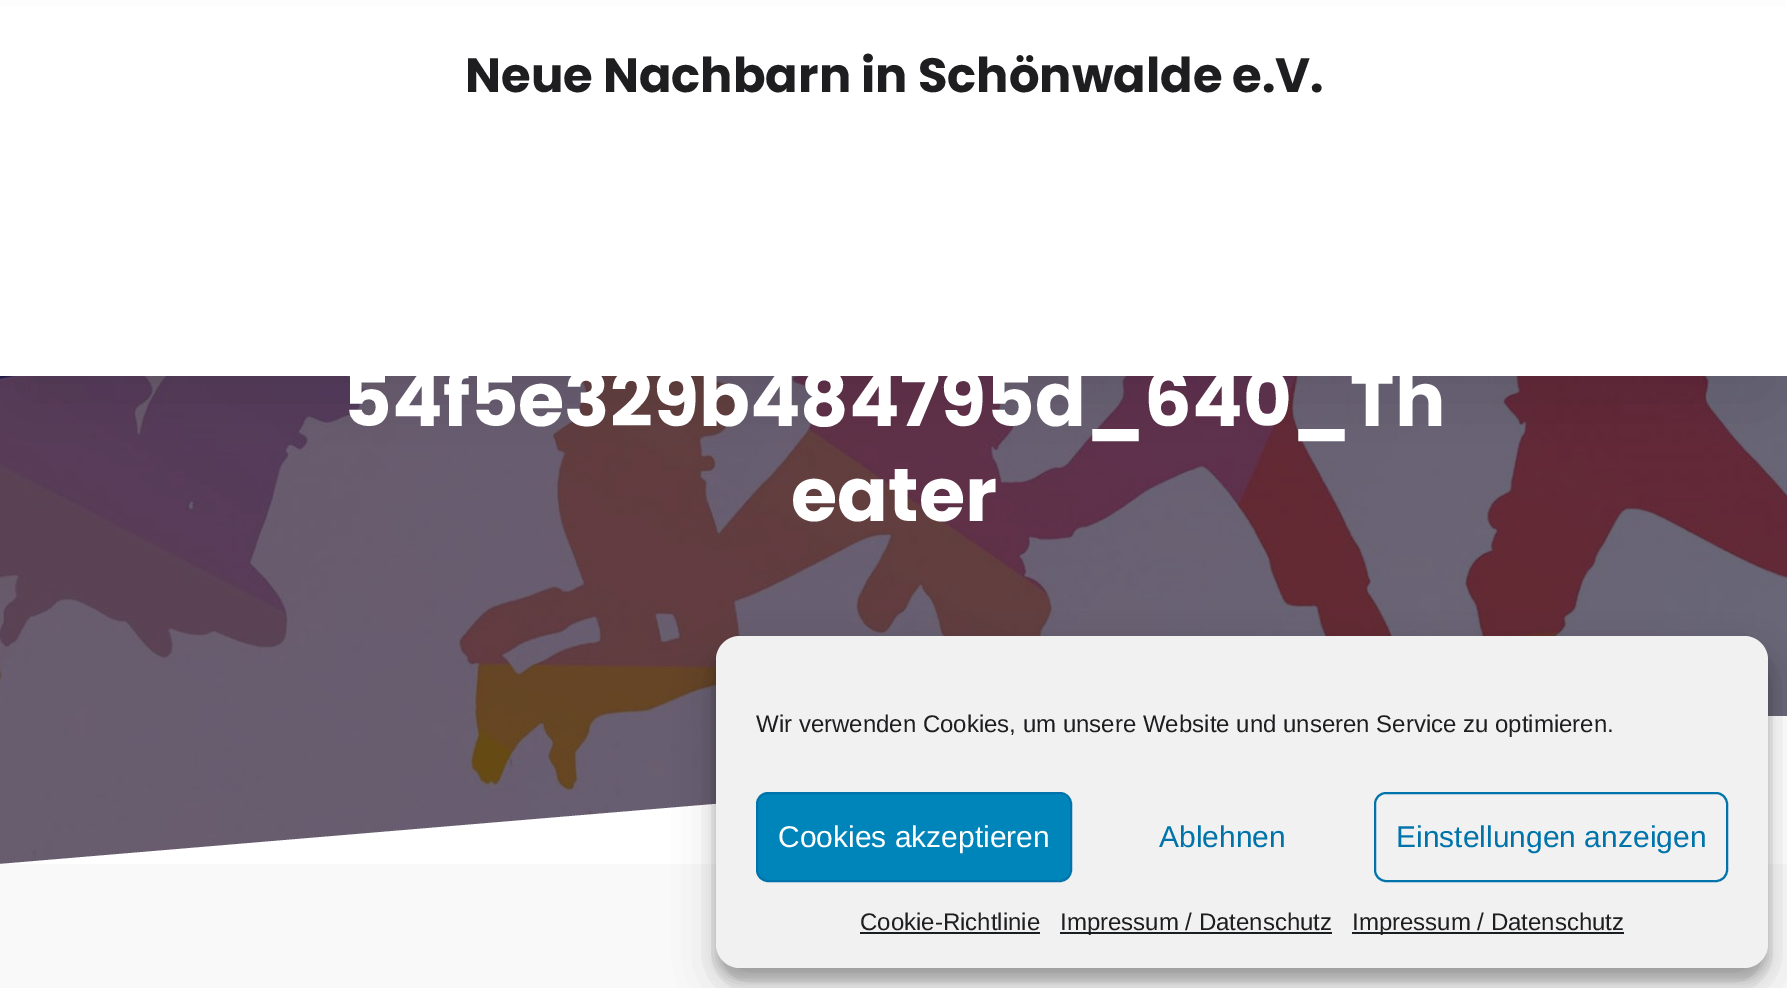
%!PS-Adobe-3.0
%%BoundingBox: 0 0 1787 988
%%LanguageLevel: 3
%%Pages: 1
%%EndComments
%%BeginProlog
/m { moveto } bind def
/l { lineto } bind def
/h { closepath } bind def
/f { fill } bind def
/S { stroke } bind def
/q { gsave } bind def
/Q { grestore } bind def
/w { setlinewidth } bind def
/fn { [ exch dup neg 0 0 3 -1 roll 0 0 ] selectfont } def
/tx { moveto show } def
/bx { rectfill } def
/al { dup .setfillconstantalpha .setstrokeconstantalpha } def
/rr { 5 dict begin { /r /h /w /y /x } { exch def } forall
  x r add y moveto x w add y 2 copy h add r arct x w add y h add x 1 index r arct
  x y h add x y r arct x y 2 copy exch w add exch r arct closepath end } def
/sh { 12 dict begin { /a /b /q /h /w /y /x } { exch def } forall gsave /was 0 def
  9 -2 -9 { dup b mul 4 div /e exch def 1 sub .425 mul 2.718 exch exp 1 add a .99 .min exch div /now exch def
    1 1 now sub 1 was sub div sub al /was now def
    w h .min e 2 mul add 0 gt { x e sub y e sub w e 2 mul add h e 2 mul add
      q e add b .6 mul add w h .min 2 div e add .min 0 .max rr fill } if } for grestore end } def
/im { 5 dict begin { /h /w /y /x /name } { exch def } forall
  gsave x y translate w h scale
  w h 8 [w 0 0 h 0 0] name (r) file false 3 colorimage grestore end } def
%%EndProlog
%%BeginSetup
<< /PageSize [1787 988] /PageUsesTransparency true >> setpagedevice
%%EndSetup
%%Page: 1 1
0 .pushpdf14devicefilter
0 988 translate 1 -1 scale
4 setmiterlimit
1 setgray
0 0 1787 988 bx
(image0.raw) 0 376 1787 488 im
0 setgray
20 58 1748 336 0 40 0.1 sh
1 setgray
0 7 1787 369 bx
/Poppins-Bold 48 fn
0.118 0.118 0.125 setrgbcolor
(Neue Nachbarn in Schönwalde e.V.) 465 92 tx
/Poppins-Bold 75 fn
1 setgray
(54f5e329b484795d_640_Th) 343 426 tx
(eater) 791 521 tx
q
0 716 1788 150 rectclip
0 864 m 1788 864 l 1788 714 l h f
Q
0.976 0.976 0.98 setrgbcolor
0 864 1787 124 bx
0 setgray
716 648 1052 332 24 6 0.23 sh
716 656 1052 332 24 20 0.19 sh
0.945 setgray
716 636 1052 332 24 rr f
/LiberationSans-Regular 24 fn
0.118 0.118 0.125 setrgbcolor
(Wir verwenden Cookies, um unsere Website und unseren Service zu optimieren.) 756 732 tx
0 0.522 0.729 setrgbcolor
757 793 314 88 11 rr q f Q
0 0.451 0.667 setrgbcolor
2 w
S
/LiberationSans-Regular 30 fn
1 setgray
(Cookies akzeptieren) 778 847 tx
0 0.451 0.667 setrgbcolor
(Ablehnen) 1159 847 tx
1375 793 352 88 11 rr S
(Einstellungen anzeigen) 1396 847 tx
/LiberationSans-Regular 24 fn
0.118 0.118 0.125 setrgbcolor
(Cookie-Richtlinie) 860 930 tx
0.098 0.118 0.137 setrgbcolor
860 932 180 2 bx
1060 932 272 2 bx
0.118 0.118 0.125 setrgbcolor
(Impressum / Datenschutz) 1060 930 tx
0.098 0.118 0.137 setrgbcolor
1352 932 272 2 bx
0.118 0.118 0.125 setrgbcolor
(Impressum / Datenschutz) 1352 930 tx
.poppdf14devicefilter showpage
%%EOF
